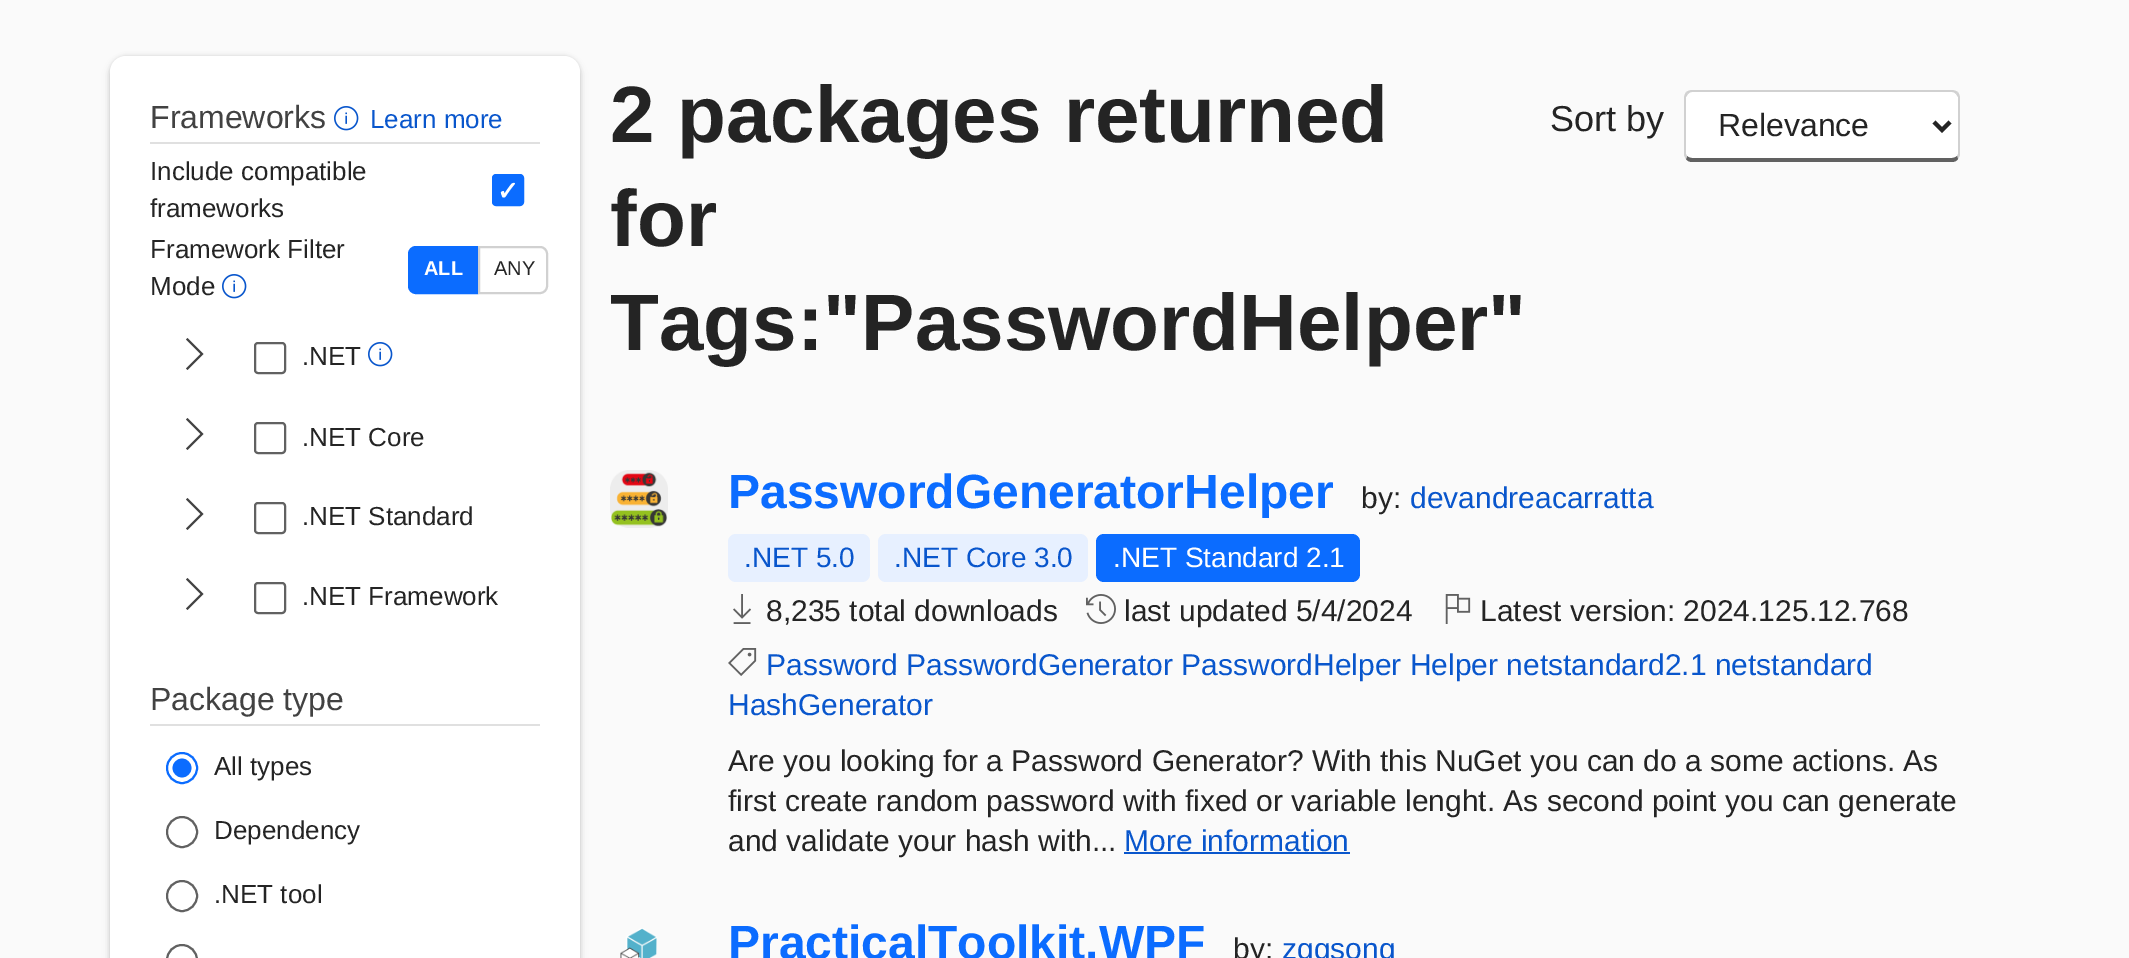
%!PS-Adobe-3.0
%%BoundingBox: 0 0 2129 958
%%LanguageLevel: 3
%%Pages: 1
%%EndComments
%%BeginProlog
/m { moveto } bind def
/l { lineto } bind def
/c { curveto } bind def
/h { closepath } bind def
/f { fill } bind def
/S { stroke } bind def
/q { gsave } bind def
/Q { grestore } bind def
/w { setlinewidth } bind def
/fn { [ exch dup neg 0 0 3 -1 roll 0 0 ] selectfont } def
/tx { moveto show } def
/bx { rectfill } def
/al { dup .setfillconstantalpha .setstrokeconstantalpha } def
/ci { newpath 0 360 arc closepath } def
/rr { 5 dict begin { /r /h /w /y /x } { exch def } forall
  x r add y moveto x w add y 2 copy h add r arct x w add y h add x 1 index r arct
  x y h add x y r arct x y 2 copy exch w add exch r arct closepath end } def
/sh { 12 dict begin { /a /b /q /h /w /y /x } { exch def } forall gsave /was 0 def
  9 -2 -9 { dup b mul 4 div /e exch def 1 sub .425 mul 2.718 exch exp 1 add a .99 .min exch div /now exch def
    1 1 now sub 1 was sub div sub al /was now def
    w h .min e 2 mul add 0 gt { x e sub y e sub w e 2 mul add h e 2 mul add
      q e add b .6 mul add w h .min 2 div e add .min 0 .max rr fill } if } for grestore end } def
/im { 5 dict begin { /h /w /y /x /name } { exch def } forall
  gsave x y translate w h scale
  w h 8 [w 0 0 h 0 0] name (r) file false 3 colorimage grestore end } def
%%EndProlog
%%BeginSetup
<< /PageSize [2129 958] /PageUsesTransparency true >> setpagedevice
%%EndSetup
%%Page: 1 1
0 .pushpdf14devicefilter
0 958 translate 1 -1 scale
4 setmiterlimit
0.98 setgray
0 0 2129 958 bx
0 setgray
110 60 470 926 16 4 0.14 sh
110 56 470 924 16 2 0.12 sh
1 setgray
110 56 470 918 16 rr f
0.878 setgray
150 142 390 2 bx
/LiberationSans-Regular 32 fn
0.259 setgray
(Frameworks) 150 128 tx
(image0.raw) 334 106 25 25 im
/LiberationSans-Regular 26 fn
0.035 0.337 0.8 setrgbcolor
(Learn more) 370 128 tx
0.141 setgray
(Include compatible) 150 180 tx
(frameworks) 150 217 tx
0.043 0.424 1 setrgbcolor
493 175 30 30 3 rr q f Q
2 w
S
/DejaVuSans-Bold 26 fn
1 setgray
(✓) 497 200 tx
/LiberationSans-Regular 26 fn
0.141 setgray
(Framework Filter) 150 258 tx
(Mode) 150 295 tx
(image0.raw) 222 274 25 25 im
0.043 0.424 1 setrgbcolor
416 247 m 477 247 l 477 293 l 416 293 l 412 293 409 290 409 286 c 409 254 l 409 250 412 247 416 247 c h q f Q
S
/LiberationSans-Bold 20 fn
1 setgray
(ALL) 424 275 tx
0.82 setgray
479 247 m 540 247 l 544 247 547 250 547 254 c 547 286 l 547 290 544 293 540 293 c 479 293 l h S
/LiberationSans-Regular 20 fn
0.141 setgray
(ANY) 494 275 tx
0.259 setgray
186 368.5 m 200.5 354 l 186 339.5 l 187.5 338 l 203.5 354 l 187.5 370 l h f
0.38 setgray
255 343 30 30 3 rr S
/LiberationSans-Regular 26 fn
0.141 setgray
(.NET) 302 365 tx
(image0.raw) 368 342 25 25 im
0.259 setgray
186 448.5 m 200.5 434 l 186 419.5 l 187.5 418 l 203.5 434 l 187.5 450 l h f
0.38 setgray
255 423 30 30 3 rr S
0.141 setgray
(.NET Core) 302 446 tx
0.259 setgray
186 528.5 m 200.5 514 l 186 499.5 l 187.5 498 l 203.5 514 l 187.5 530 l h f
0.38 setgray
255 503 30 30 3 rr S
0.141 setgray
(.NET Standard) 302 525 tx
0.259 setgray
186 608.5 m 200.5 594 l 186 579.5 l 187.5 578 l 203.5 594 l 187.5 610 l h f
0.38 setgray
255 583 30 30 3 rr S
0.141 setgray
(.NET Framework) 302 605 tx
0.878 setgray
150 724 390 2 bx
/LiberationSans-Regular 32 fn
0.259 setgray
(Package type) 150 710 tx
0.043 0.424 1 setrgbcolor
18.8 w
1 setlinecap
[0 28] 0 setdash
182 768 m 182.4 768 l S
2 w
0 setlinecap
[] 0 setdash
182 768 15 ci S
/LiberationSans-Regular 26 fn
0.141 setgray
(All types) 214 775 tx
0.38 setgray
182 832 15 ci S
0.141 setgray
(Dependency) 214 839 tx
0.38 setgray
182 896 15 ci S
0.141 setgray
(.NET tool) 214 903 tx
0.38 setgray
182 960 15 ci S
/LiberationSans-Bold 80 fn
0.141 setgray
(2 packages returned) 610 142 tx
(for) 610 246 tx
(Tags:"PasswordHelper") 610 350 tx
/LiberationSans-Regular 36 fn
(Sort by) 1550 131 tx
1 setgray
1692 92 m 1952 92 l 1955 92 1958 95 1958 98 c 1958 154 l 1958 156 1955 158 1952 158 c 1692 158 l 1689 158 1686 156 1686 154 c 1686 98 l 1686 95 1689 92 1692 92 c h f
0.82 setgray
1692 90 m 1690 90 1688 91 1686 92 c 1688 94 l 1689 93 1690 92 1692 92 c 1952 92 l 1954 92 1955 93 1956 94 c 1958 92 l 1956 91 1954 90 1952 90 c h f
1960 154 m 1960 98 l 1960 96 1959 94 1958 92 c 1956 94 l 1958 97 l 1958 154 l 1957 156 l 1958 159 l 1959 157 1960 156 1960 154 c h f
0.38 setgray
1692 162 m 1952 162 l 1954 162 1957 161 1958 159 c 1957 156 l 1956 157 1954 158 1952 158 c 1692 158 l 1690 158 1688 157 1687 156 c 1686 159 l 1687 161 1690 162 1692 162 c h f
0.82 setgray
1684 98 m 1684 154 l 1684 156 1685 157 1686 159 c 1687 156 l 1686 154 l 1686 97 l 1688 94 l 1686 92 l 1685 94 1684 96 1684 98 c h f
0.141 setgray
4 w
1934 122 m 1942 130 l 1950 122 l S
/LiberationSans-Regular 32 fn
(Relevance) 1718 136 tx
(image1.raw) 610 470 58 58 im
/LiberationSans-Bold 48 fn
0.043 0.424 1 setrgbcolor
(PasswordGeneratorHelper) 728 508 tx
/LiberationSans-Regular 30 fn
0.141 setgray
(by:) 1361 508 tx
0.035 0.337 0.8 setrgbcolor
(devandreacarratta) 1410 508 tx
0.906 0.941 1 setrgbcolor
728 534 142 48 8 rr f
/LiberationSans-Regular 28 fn
0.035 0.337 0.8 setrgbcolor
(.NET 5.0) 744 567 tx
0.906 0.941 1 setrgbcolor
878 534 210 48 8 rr f
0.035 0.337 0.8 setrgbcolor
(.NET Core 3.0) 894 567 tx
0.043 0.424 1 setrgbcolor
1096 534 264 48 8 rr f
1 setgray
(.NET Standard 2.1) 1113 567 tx
(image2.raw) 733 594 18 30 im
/LiberationSans-Regular 30 fn
0.141 setgray
(8,235 total downloads) 766 621 tx
(image3.raw) 1086 594 30 30 im
(last updated 5/4/2024) 1124 621 tx
(image4.raw) 1445 594 26 30 im
(Latest version: 2024.125.12.768) 1480 621 tx
(image5.raw) 728 648 29 28 im
0.035 0.337 0.8 setrgbcolor
(Password PasswordGenerator PasswordHelper Helper netstandard2.1 netstandard) 766 675 tx
(HashGenerator) 728 715 tx
0.141 setgray
(Are you looking for a Password Generator? With this NuGet you can do a some actions. As) 728 771 tx
(first create random password with fixed or variable lenght. As second point you can generate) 728 811 tx
(and validate your hash with...) 728 851 tx
0.035 0.337 0.8 setrgbcolor
(More information) 1124 851 tx
1124 852 226 2 bx
(image6.raw) 620 928 37 30 im
/LiberationSans-Bold 48 fn
0.043 0.424 1 setrgbcolor
(PracticalToolkit.WPF) 728 959 tx
/LiberationSans-Regular 30 fn
0.141 setgray
(by:) 1233 959 tx
0.035 0.337 0.8 setrgbcolor
(zggsong) 1282 959 tx
.poppdf14devicefilter showpage
%%EOF
